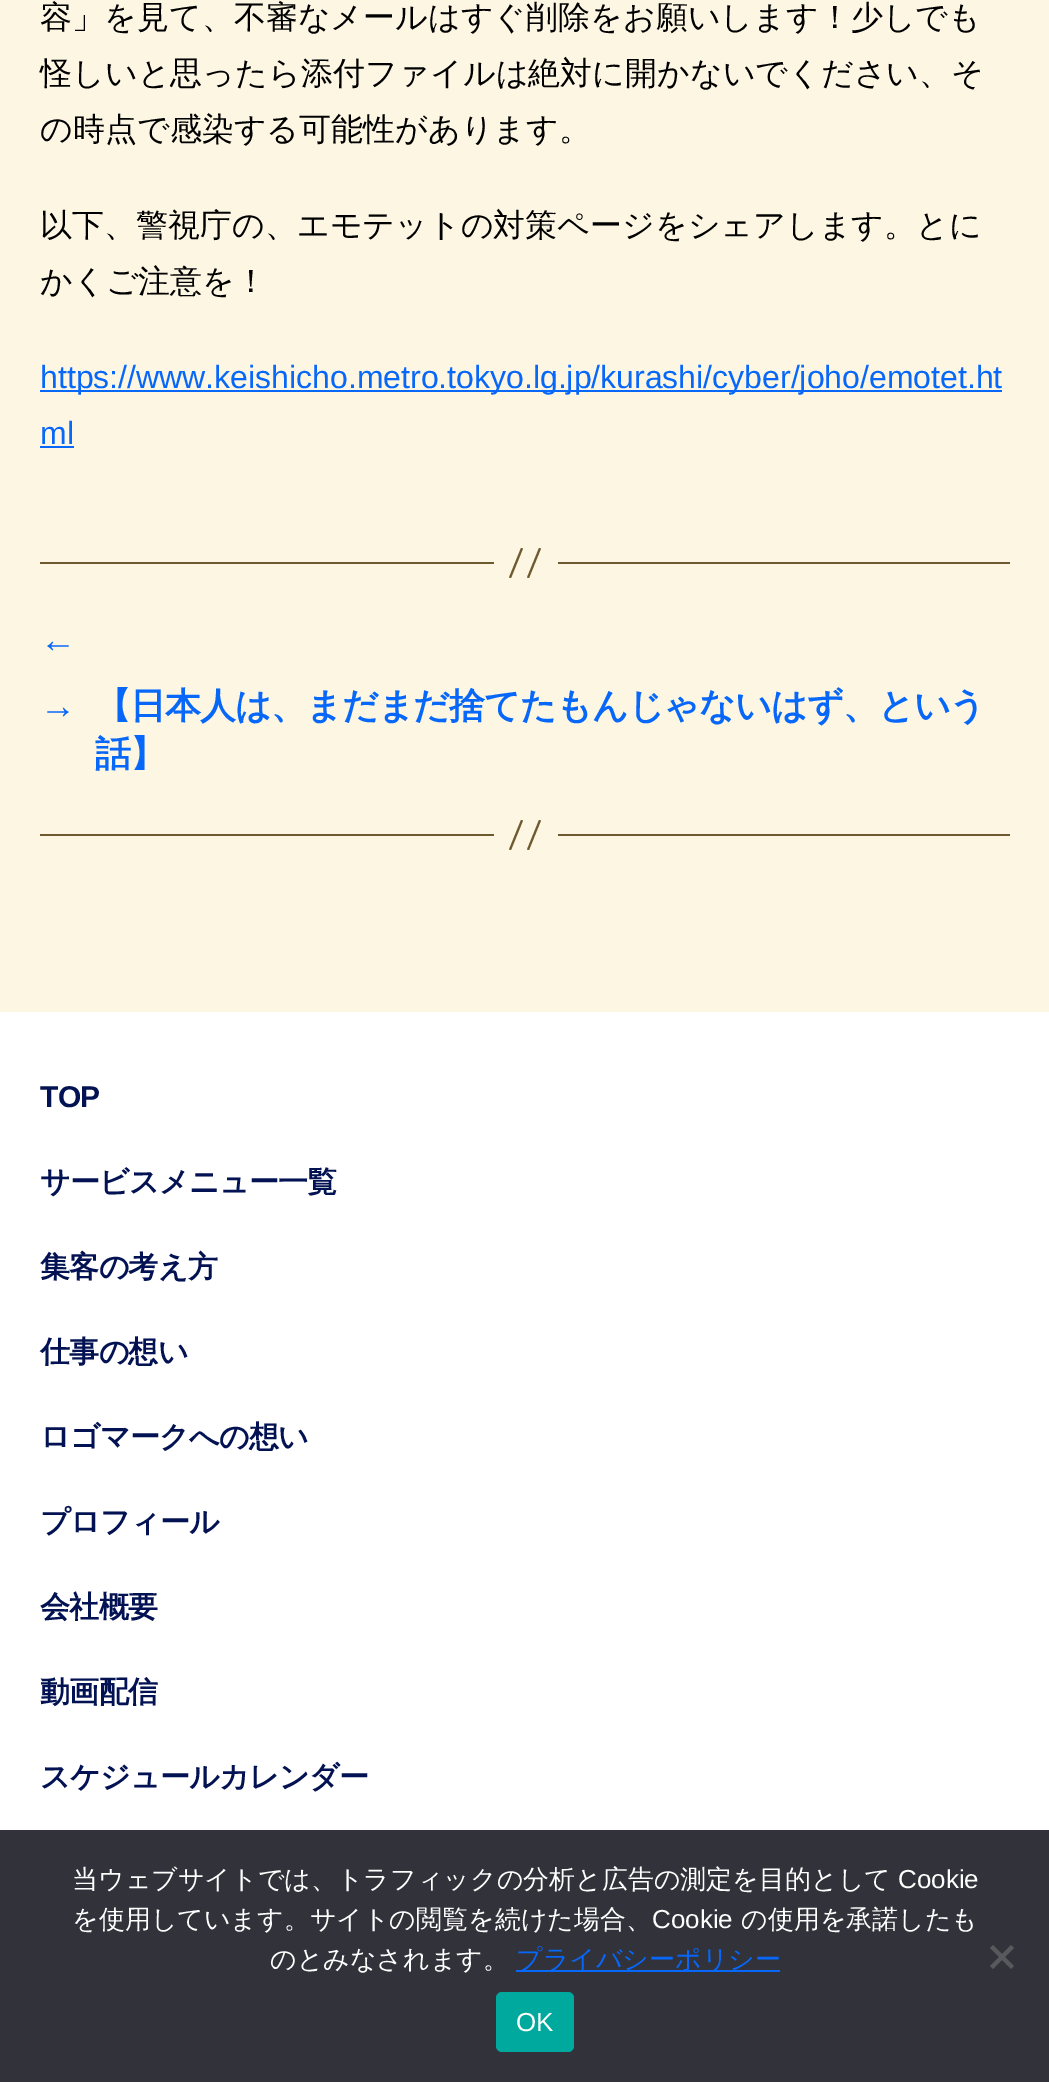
%!PS-Adobe-3.0
%%BoundingBox: 0 0 1049 2082
%%LanguageLevel: 3
%%Pages: 1
%%EndComments
%%BeginProlog
/m { moveto } bind def
/l { lineto } bind def
/h { closepath } bind def
/f { fill } bind def
/fn { [ exch dup neg 0 0 3 -1 roll 0 0 ] selectfont } def
/tx { moveto show } def
/bx { rectfill } def
/rr { 5 dict begin { /r /h /w /y /x } { exch def } forall
  x r add y moveto x w add y 2 copy h add r arct x w add y h add x 1 index r arct
  x y h add x y r arct x y 2 copy exch w add exch r arct closepath end } def
%%EndProlog
%%BeginSetup
<< /PageSize [1049 2082] >> setpagedevice
%%EndSetup
%%Page: 1 1
0 2082 translate 1 -1 scale
4 setmiterlimit
0.988 0.965 0.89 setrgbcolor
0 0 1049 2082 bx
/WenQuanYiZenHei-Medium 32 fn
0 setgray
(容」を見て、不審なメールはすぐ削除をお願いします！少しでも) 40 28 tx
(怪しいと思ったら添付ファイルは絶対に開かないでください、そ) 40 84 tx
(の時点で感染する可能性があります。) 40 140 tx
(以下、警視庁の、エモテットの対策ページをシェアします。とに) 40 236 tx
(かくご注意を！) 40 292 tx
0.024 0.404 0.973 setrgbcolor
40 390 962 2 bx
/LiberationSans-Regular 32 fn
(https://www.keishicho.metro.tokyo.lg.jp/kurashi/cyber/joho/emotet.ht) 40 388 tx
(ml) 40 444 tx
40 446 34 2 bx
0.435 0.353 0.184 setrgbcolor
558 562 452 2 bx
40 562 454 2 bx
521 548 m 523 548.5 l 511 578 l 509 577.5 l h 539 548 m 541 548.5 l 529 578 l 527 577.5 l h f
/LiberationSans-Bold 36 fn
0.024 0.404 0.973 setrgbcolor
40 652 m -1 0 (←) ashow
40 718 m -1 0 (→) ashow
/WenQuanYiZenHei-Bold 36 fn
95 718 m -1 0 (【日本人は、まだまだ捨てたもんじゃないはず、という) ashow
95 766 m -1 0 (話】) ashow
0.435 0.353 0.184 setrgbcolor
558 834 452 2 bx
40 834 454 2 bx
521 820 m 523 820.5 l 511 850 l 509 849.5 l h 539 820 m 541 820.5 l 529 850 l 527 849.5 l h f
1 setgray
0 1012 1049 818 bx
/LiberationSans-Bold 30 fn
0.008 0.071 0.322 setrgbcolor
40 1107 m -0.75 0 (TOP) ashow
/WenQuanYiZenHei-Bold 30 fn
40 1192 m -0.75 0 (サービスメニュー一覧) ashow
40 1277 m -0.75 0 (集客の考え方) ashow
40 1362 m -0.75 0 (仕事の想い) ashow
40 1447 m -0.75 0 (ロゴマークへの想い) ashow
40 1532 m -0.75 0 (プロフィール) ashow
40 1617 m -0.75 0 (会社概要) ashow
40 1702 m -0.75 0 (動画配信) ashow
40 1787 m -0.75 0 (スケジュールカレンダー) ashow
0.196 0.196 0.227 setrgbcolor
0 1830 1049 252 bx
/WenQuanYiZenHei-Medium 26 fn
1 setgray
(当ウェブサイトでは、トラフィックの分析と広告の測定を目的として) 72 1888 tx
/LiberationSans-Regular 26 fn
(Cookie) 898 1888 tx
/WenQuanYiZenHei-Medium 26 fn
(を使用しています。サイトの閲覧を続けた場合、) 72 1928 tx
/LiberationSans-Regular 26 fn
(Cookie) 652 1928 tx
/WenQuanYiZenHei-Medium 26 fn
(の使用を承諾したも) 741 1928 tx
(のとみなされます。) 270 1968 tx
0.024 0.404 0.973 setrgbcolor
516 1970 264 2 bx
(プライバシーポリシー) 516 1968 tx
0.349 0.349 0.365 setrgbcolor
1011 1945 m 1014 1948 l 993 1969 l 990 1966 l h f
990 1948 m 993 1945 l 1014 1966 l 1011 1969 l h f
0 0.663 0.616 setrgbcolor
496 1992 78 60 6 rr f
/LiberationSans-Regular 26 fn
1 setgray
(OK) 516 2031 tx
showpage
%%EOF
